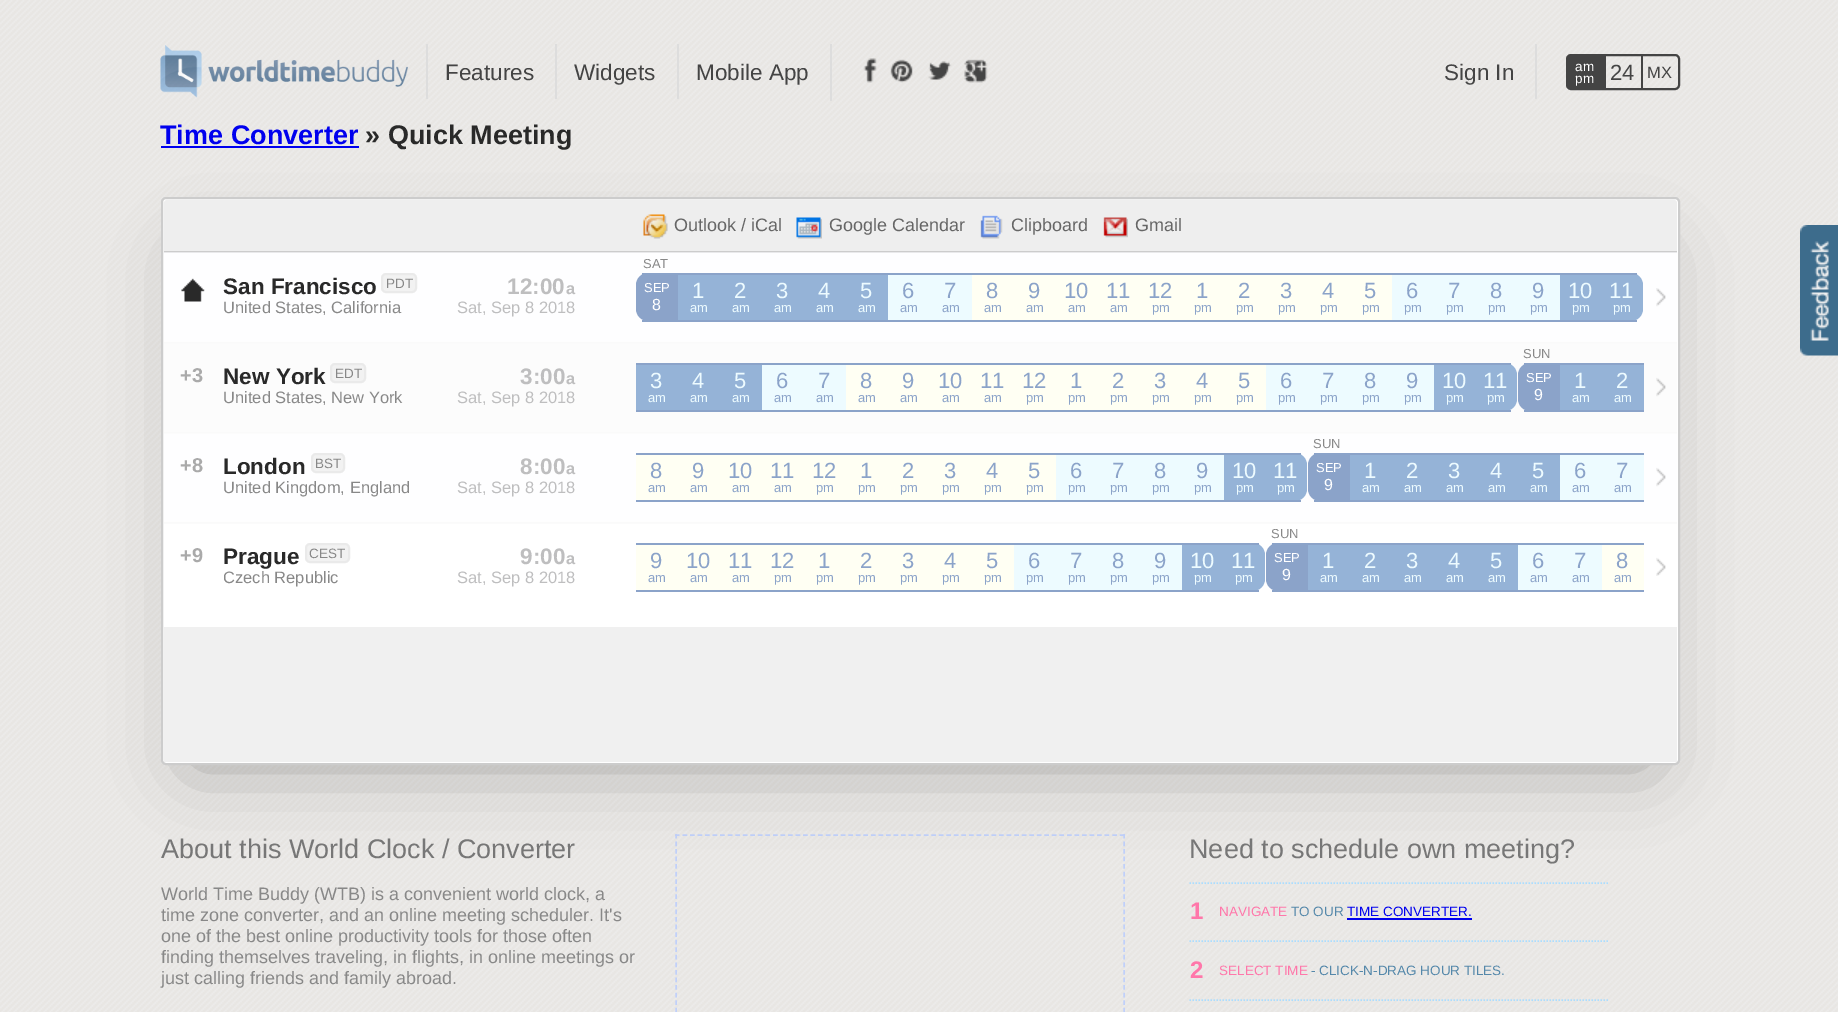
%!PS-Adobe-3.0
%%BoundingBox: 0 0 1838 1012
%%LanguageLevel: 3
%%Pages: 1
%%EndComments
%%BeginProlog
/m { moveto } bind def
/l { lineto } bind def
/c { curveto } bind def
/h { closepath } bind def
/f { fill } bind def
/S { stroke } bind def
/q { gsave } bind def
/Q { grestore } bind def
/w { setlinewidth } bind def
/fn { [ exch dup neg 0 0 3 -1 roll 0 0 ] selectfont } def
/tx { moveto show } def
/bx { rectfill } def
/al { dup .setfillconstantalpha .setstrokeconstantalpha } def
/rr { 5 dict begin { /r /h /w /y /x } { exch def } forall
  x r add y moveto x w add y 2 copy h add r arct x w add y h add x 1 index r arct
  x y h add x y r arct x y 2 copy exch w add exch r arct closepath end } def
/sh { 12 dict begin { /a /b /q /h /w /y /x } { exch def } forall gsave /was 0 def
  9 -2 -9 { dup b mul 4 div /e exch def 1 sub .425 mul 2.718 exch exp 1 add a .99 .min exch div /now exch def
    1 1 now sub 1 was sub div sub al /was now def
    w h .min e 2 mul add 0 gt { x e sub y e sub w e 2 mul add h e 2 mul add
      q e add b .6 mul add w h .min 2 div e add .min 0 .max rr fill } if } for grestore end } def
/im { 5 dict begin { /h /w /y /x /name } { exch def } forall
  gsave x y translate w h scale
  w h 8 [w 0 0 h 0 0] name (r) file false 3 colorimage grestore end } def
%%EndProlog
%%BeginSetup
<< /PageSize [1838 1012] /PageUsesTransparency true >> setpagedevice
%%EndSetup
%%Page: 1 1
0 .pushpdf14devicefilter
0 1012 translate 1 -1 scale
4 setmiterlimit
0.91 0.902 0.89 setrgbcolor
0 0 1838 1012 bx
(image0.raw) 0 0 1838 1012 im
(image1.raw) 160 45 248 53 im
0.867 setgray
426 44 2 55 bx
/LiberationSans-Regular 22.5 fn
0.267 setgray
(Features) 445 80 tx
0.867 setgray
555 44 2 55 bx
0.267 setgray
(Widgets) 574 80 tx
0.867 setgray
677 44 2 55 bx
0.267 setgray
(Mobile App) 696 80 tx
0.867 setgray
830 44 2 57 bx
(image2.raw) 863 58 125 25 im
0.267 setgray
(Sign In) 1444 80 tx
0.867 setgray
1535 44 2 55 bx
0.267 setgray
2 w
1567 55 112 34 4 rr S
1568 56 36 32 bx
/LiberationSans-Regular 13.5 fn
1 setgray
(am) 1575 71 tx
(pm) 1575 83 tx
0.267 setgray
1604 56 2 33 bx
/LiberationSans-Regular 22 fn
(24) 1610 80 tx
1641 56 2 33 bx
/LiberationSans-Regular 16.5 fn
(MX) 1647 78 tx
/LiberationSans-Bold 27 fn
0 0 0.933 setrgbcolor
(Time Converter) 160 144 tx
161 146 198 2 bx
0.161 setgray
(» Quick Meeting) 365 144 tx
0.753 0.816 0.98 setrgbcolor
1.5 w
[4.5 3.04] 0 setdash
675 835 m 1125 835 l S
[4.5 3.06] 0 setdash
1124 834 m 1124 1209 l S
676 834 m 676 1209 l S
0 setgray
191 257 1459 508 0 37.5 0.3 sh
1 setgray
162 198 1517 566 4 rr q f Q
0.8 setgray
2 w
[] 0 setdash
S
0.933 setgray
167 200 m 1674 200 l 1675.5 200 1677 201.5 1677 203 c 1677 252 l 164 252 l 164 203 l 164 201.5 165.5 200 167 200 c h f
0.8 setgray
164 251 1513 2 bx
(image3.raw) 643 214 25 25 im
/LiberationSans-Regular 18 fn
0.4 setgray
(Outlook / iCal) 674 231 tx
(image4.raw) 796 217 26 22 im
(Google Calendar) 829 231 tx
(image5.raw) 980 215 23 24 im
(Clipboard) 1011 231 tx
(image6.raw) 1103 217 25 21 im
(Gmail) 1135 231 tx
(image7.raw) 164 252 1513 272 im
(image8.raw) 181 278 24 24 im
/LiberationSans-Bold 22.5 fn
0.161 setgray
(San Francisco) 223 294 tx
0.949 setgray
382 274 34 18 4 rr q f Q
0.918 setgray
S
/LiberationSans-Regular 13.5 fn
0.533 setgray
(PDT) 386 288 tx
/LiberationSans-Regular 16.5 fn
(United States, California) 223 313 tx
/LiberationSans-Bold 22.5 fn
0.745 0.745 0.749 setrgbcolor
(12:00) 507 294 tx
/LiberationSans-Bold 16.5 fn
(a) 566 294 tx
/LiberationSans-Regular 16.5 fn
(Sat, Sep 8 2018) 457 313 tx
0.545 0.639 0.788 setrgbcolor
648 273 m 678 273 l 678 321 l 648 321 l 641.5 321 636 315.5 636 309 c 636 285 l 636 278.5 641.5 273 648 273 c h f
642 273 6 2 bx
642 320 960 2 bx
/LiberationSans-Regular 13 fn
0.533 setgray
(SAT) 643 268 tx
1 setgray
(SEP) 644 292 tx
/LiberationSans-Regular 16 fn
(8) 652 310 tx
0.584 0.702 0.843 setrgbcolor
678 275 210 45 bx
0.545 0.639 0.788 setrgbcolor
678 273 924 2 bx
/LiberationSans-Regular 22 fn
0.929 0.984 1 setrgbcolor
(1) 692 298 tx
/LiberationSans-Regular 13 fn
(am) 690 312 tx
/LiberationSans-Regular 22 fn
(2) 734 298 tx
/LiberationSans-Regular 13 fn
(am) 732 312 tx
/LiberationSans-Regular 22 fn
(3) 776 298 tx
/LiberationSans-Regular 13 fn
(am) 774 312 tx
/LiberationSans-Regular 22 fn
(4) 818 298 tx
/LiberationSans-Regular 13 fn
(am) 816 312 tx
/LiberationSans-Regular 22 fn
(5) 860 298 tx
/LiberationSans-Regular 13 fn
(am) 858 312 tx
888 275 84 45 bx
/LiberationSans-Regular 22 fn
0.545 0.639 0.788 setrgbcolor
(6) 902 298 tx
/LiberationSans-Regular 13 fn
(am) 900 312 tx
/LiberationSans-Regular 22 fn
(7) 944 298 tx
/LiberationSans-Regular 13 fn
(am) 942 312 tx
1 1 0.953 setrgbcolor
972 275 420 45 bx
/LiberationSans-Regular 22 fn
0.545 0.639 0.788 setrgbcolor
(8) 986 298 tx
/LiberationSans-Regular 13 fn
(am) 984 312 tx
/LiberationSans-Regular 22 fn
(9) 1028 298 tx
/LiberationSans-Regular 13 fn
(am) 1026 312 tx
/LiberationSans-Regular 22 fn
(10) 1064 298 tx
/LiberationSans-Regular 13 fn
(am) 1068 312 tx
/LiberationSans-Regular 22 fn
(11) 1106 298 tx
/LiberationSans-Regular 13 fn
(am) 1110 312 tx
/LiberationSans-Regular 22 fn
(12) 1148 298 tx
/LiberationSans-Regular 13 fn
(pm) 1152 312 tx
/LiberationSans-Regular 22 fn
(1) 1196 298 tx
/LiberationSans-Regular 13 fn
(pm) 1194 312 tx
/LiberationSans-Regular 22 fn
(2) 1238 298 tx
/LiberationSans-Regular 13 fn
(pm) 1236 312 tx
/LiberationSans-Regular 22 fn
(3) 1280 298 tx
/LiberationSans-Regular 13 fn
(pm) 1278 312 tx
/LiberationSans-Regular 22 fn
(4) 1322 298 tx
/LiberationSans-Regular 13 fn
(pm) 1320 312 tx
/LiberationSans-Regular 22 fn
(5) 1364 298 tx
/LiberationSans-Regular 13 fn
(pm) 1362 312 tx
0.929 0.984 1 setrgbcolor
1392 275 168 45 bx
/LiberationSans-Regular 22 fn
0.545 0.639 0.788 setrgbcolor
(6) 1406 298 tx
/LiberationSans-Regular 13 fn
(pm) 1404 312 tx
/LiberationSans-Regular 22 fn
(7) 1448 298 tx
/LiberationSans-Regular 13 fn
(pm) 1446 312 tx
/LiberationSans-Regular 22 fn
(8) 1490 298 tx
/LiberationSans-Regular 13 fn
(pm) 1488 312 tx
/LiberationSans-Regular 22 fn
(9) 1532 298 tx
/LiberationSans-Regular 13 fn
(pm) 1530 312 tx
0.584 0.702 0.843 setrgbcolor
1560 275 42 45 bx
/LiberationSans-Regular 22 fn
0.929 0.984 1 setrgbcolor
(10) 1568 298 tx
/LiberationSans-Regular 13 fn
(pm) 1572 312 tx
0.584 0.702 0.843 setrgbcolor
1602 273 m 1631 273 l 1637.5 273 1643 278.5 1643 285 c 1643 309 l 1643 315.5 1637.5 321 1631 321 c 1602 321 l h f
0.545 0.639 0.788 setrgbcolor
1602 273 35 2 bx
1602 320 35 2 bx
/LiberationSans-Regular 22 fn
0.929 0.984 1 setrgbcolor
(11) 1609 298 tx
/LiberationSans-Regular 13 fn
(pm) 1613 312 tx
(image9.raw) 1656 288 10 288 im
/LiberationSans-Bold 20 fn
0.667 setgray
(+3) 180 382 tx
/LiberationSans-Bold 22.5 fn
0.161 setgray
(New York) 223 384 tx
0.949 setgray
331 364 34 18 4 rr q f Q
0.918 setgray
S
/LiberationSans-Regular 13.5 fn
0.533 setgray
(EDT) 335 378 tx
/LiberationSans-Regular 16.5 fn
(United States, New York) 223 403 tx
/LiberationSans-Bold 22.5 fn
0.745 0.745 0.749 setrgbcolor
(3:00) 520 384 tx
/LiberationSans-Bold 16.5 fn
(a) 566 384 tx
/LiberationSans-Regular 16.5 fn
(Sat, Sep 8 2018) 457 403 tx
0.584 0.702 0.843 setrgbcolor
636 365 126 45 bx
0.545 0.639 0.788 setrgbcolor
636 363 840 2 bx
636 410 840 2 bx
/LiberationSans-Regular 22 fn
0.929 0.984 1 setrgbcolor
(3) 650 388 tx
/LiberationSans-Regular 13 fn
(am) 648 402 tx
/LiberationSans-Regular 22 fn
(4) 692 388 tx
/LiberationSans-Regular 13 fn
(am) 690 402 tx
/LiberationSans-Regular 22 fn
(5) 734 388 tx
/LiberationSans-Regular 13 fn
(am) 732 402 tx
762 365 84 45 bx
/LiberationSans-Regular 22 fn
0.545 0.639 0.788 setrgbcolor
(6) 776 388 tx
/LiberationSans-Regular 13 fn
(am) 774 402 tx
/LiberationSans-Regular 22 fn
(7) 818 388 tx
/LiberationSans-Regular 13 fn
(am) 816 402 tx
1 1 0.953 setrgbcolor
846 365 420 45 bx
/LiberationSans-Regular 22 fn
0.545 0.639 0.788 setrgbcolor
(8) 860 388 tx
/LiberationSans-Regular 13 fn
(am) 858 402 tx
/LiberationSans-Regular 22 fn
(9) 902 388 tx
/LiberationSans-Regular 13 fn
(am) 900 402 tx
/LiberationSans-Regular 22 fn
(10) 938 388 tx
/LiberationSans-Regular 13 fn
(am) 942 402 tx
/LiberationSans-Regular 22 fn
(11) 980 388 tx
/LiberationSans-Regular 13 fn
(am) 984 402 tx
/LiberationSans-Regular 22 fn
(12) 1022 388 tx
/LiberationSans-Regular 13 fn
(pm) 1026 402 tx
/LiberationSans-Regular 22 fn
(1) 1070 388 tx
/LiberationSans-Regular 13 fn
(pm) 1068 402 tx
/LiberationSans-Regular 22 fn
(2) 1112 388 tx
/LiberationSans-Regular 13 fn
(pm) 1110 402 tx
/LiberationSans-Regular 22 fn
(3) 1154 388 tx
/LiberationSans-Regular 13 fn
(pm) 1152 402 tx
/LiberationSans-Regular 22 fn
(4) 1196 388 tx
/LiberationSans-Regular 13 fn
(pm) 1194 402 tx
/LiberationSans-Regular 22 fn
(5) 1238 388 tx
/LiberationSans-Regular 13 fn
(pm) 1236 402 tx
0.929 0.984 1 setrgbcolor
1266 365 168 45 bx
/LiberationSans-Regular 22 fn
0.545 0.639 0.788 setrgbcolor
(6) 1280 388 tx
/LiberationSans-Regular 13 fn
(pm) 1278 402 tx
/LiberationSans-Regular 22 fn
(7) 1322 388 tx
/LiberationSans-Regular 13 fn
(pm) 1320 402 tx
/LiberationSans-Regular 22 fn
(8) 1364 388 tx
/LiberationSans-Regular 13 fn
(pm) 1362 402 tx
/LiberationSans-Regular 22 fn
(9) 1406 388 tx
/LiberationSans-Regular 13 fn
(pm) 1404 402 tx
0.584 0.702 0.843 setrgbcolor
1434 365 42 45 bx
/LiberationSans-Regular 22 fn
0.929 0.984 1 setrgbcolor
(10) 1442 388 tx
/LiberationSans-Regular 13 fn
(pm) 1446 402 tx
0.584 0.702 0.843 setrgbcolor
1476 363 m 1505 363 l 1511.5 363 1517 368.5 1517 375 c 1517 399 l 1517 405.5 1511.5 411 1505 411 c 1476 411 l h f
0.545 0.639 0.788 setrgbcolor
1476 363 35 2 bx
1476 410 35 2 bx
/LiberationSans-Regular 22 fn
0.929 0.984 1 setrgbcolor
(11) 1483 388 tx
/LiberationSans-Regular 13 fn
(pm) 1487 402 tx
0.545 0.639 0.788 setrgbcolor
1530 363 m 1560 363 l 1560 411 l 1530 411 l 1523.5 411 1518 405.5 1518 399 c 1518 375 l 1518 368.5 1523.5 363 1530 363 c h f
1524 363 6 2 bx
1524 410 120 2 bx
0.533 setgray
(SUN) 1523 358 tx
1 setgray
(SEP) 1526 382 tx
/LiberationSans-Regular 16 fn
(9) 1534 400 tx
0.584 0.702 0.843 setrgbcolor
1560 365 84 45 bx
0.545 0.639 0.788 setrgbcolor
1560 363 84 2 bx
/LiberationSans-Regular 22 fn
0.929 0.984 1 setrgbcolor
(1) 1574 388 tx
/LiberationSans-Regular 13 fn
(am) 1572 402 tx
/LiberationSans-Regular 22 fn
(2) 1616 388 tx
/LiberationSans-Regular 13 fn
(am) 1614 402 tx
/LiberationSans-Bold 20 fn
0.667 setgray
(+8) 180 472 tx
/LiberationSans-Bold 22.5 fn
0.161 setgray
(London) 223 474 tx
0.949 setgray
312 454 32 18 4 rr q f Q
0.918 setgray
S
/LiberationSans-Regular 13.5 fn
0.533 setgray
(BST) 315 468 tx
/LiberationSans-Regular 16.5 fn
(United Kingdom, England) 223 493 tx
/LiberationSans-Bold 22.5 fn
0.745 0.745 0.749 setrgbcolor
(8:00) 520 474 tx
/LiberationSans-Bold 16.5 fn
(a) 566 474 tx
/LiberationSans-Regular 16.5 fn
(Sat, Sep 8 2018) 457 493 tx
1 1 0.953 setrgbcolor
636 455 420 45 bx
0.545 0.639 0.788 setrgbcolor
636 453 630 2 bx
636 500 630 2 bx
/LiberationSans-Regular 22 fn
(8) 650 478 tx
/LiberationSans-Regular 13 fn
(am) 648 492 tx
/LiberationSans-Regular 22 fn
(9) 692 478 tx
/LiberationSans-Regular 13 fn
(am) 690 492 tx
/LiberationSans-Regular 22 fn
(10) 728 478 tx
/LiberationSans-Regular 13 fn
(am) 732 492 tx
/LiberationSans-Regular 22 fn
(11) 770 478 tx
/LiberationSans-Regular 13 fn
(am) 774 492 tx
/LiberationSans-Regular 22 fn
(12) 812 478 tx
/LiberationSans-Regular 13 fn
(pm) 816 492 tx
/LiberationSans-Regular 22 fn
(1) 860 478 tx
/LiberationSans-Regular 13 fn
(pm) 858 492 tx
/LiberationSans-Regular 22 fn
(2) 902 478 tx
/LiberationSans-Regular 13 fn
(pm) 900 492 tx
/LiberationSans-Regular 22 fn
(3) 944 478 tx
/LiberationSans-Regular 13 fn
(pm) 942 492 tx
/LiberationSans-Regular 22 fn
(4) 986 478 tx
/LiberationSans-Regular 13 fn
(pm) 984 492 tx
/LiberationSans-Regular 22 fn
(5) 1028 478 tx
/LiberationSans-Regular 13 fn
(pm) 1026 492 tx
0.929 0.984 1 setrgbcolor
1056 455 168 45 bx
/LiberationSans-Regular 22 fn
0.545 0.639 0.788 setrgbcolor
(6) 1070 478 tx
/LiberationSans-Regular 13 fn
(pm) 1068 492 tx
/LiberationSans-Regular 22 fn
(7) 1112 478 tx
/LiberationSans-Regular 13 fn
(pm) 1110 492 tx
/LiberationSans-Regular 22 fn
(8) 1154 478 tx
/LiberationSans-Regular 13 fn
(pm) 1152 492 tx
/LiberationSans-Regular 22 fn
(9) 1196 478 tx
/LiberationSans-Regular 13 fn
(pm) 1194 492 tx
0.584 0.702 0.843 setrgbcolor
1224 455 42 45 bx
/LiberationSans-Regular 22 fn
0.929 0.984 1 setrgbcolor
(10) 1232 478 tx
/LiberationSans-Regular 13 fn
(pm) 1236 492 tx
0.584 0.702 0.843 setrgbcolor
1266 453 m 1295 453 l 1301.5 453 1307 458.5 1307 465 c 1307 489 l 1307 495.5 1301.5 501 1295 501 c 1266 501 l h f
0.545 0.639 0.788 setrgbcolor
1266 453 35 2 bx
1266 500 35 2 bx
/LiberationSans-Regular 22 fn
0.929 0.984 1 setrgbcolor
(11) 1273 478 tx
/LiberationSans-Regular 13 fn
(pm) 1277 492 tx
0.545 0.639 0.788 setrgbcolor
1320 453 m 1350 453 l 1350 501 l 1320 501 l 1313.5 501 1308 495.5 1308 489 c 1308 465 l 1308 458.5 1313.5 453 1320 453 c h f
1314 453 6 2 bx
1314 500 330 2 bx
0.533 setgray
(SUN) 1313 448 tx
1 setgray
(SEP) 1316 472 tx
/LiberationSans-Regular 16 fn
(9) 1324 490 tx
0.584 0.702 0.843 setrgbcolor
1350 455 210 45 bx
0.545 0.639 0.788 setrgbcolor
1350 453 294 2 bx
/LiberationSans-Regular 22 fn
0.929 0.984 1 setrgbcolor
(1) 1364 478 tx
/LiberationSans-Regular 13 fn
(am) 1362 492 tx
/LiberationSans-Regular 22 fn
(2) 1406 478 tx
/LiberationSans-Regular 13 fn
(am) 1404 492 tx
/LiberationSans-Regular 22 fn
(3) 1448 478 tx
/LiberationSans-Regular 13 fn
(am) 1446 492 tx
/LiberationSans-Regular 22 fn
(4) 1490 478 tx
/LiberationSans-Regular 13 fn
(am) 1488 492 tx
/LiberationSans-Regular 22 fn
(5) 1532 478 tx
/LiberationSans-Regular 13 fn
(am) 1530 492 tx
1560 455 84 45 bx
/LiberationSans-Regular 22 fn
0.545 0.639 0.788 setrgbcolor
(6) 1574 478 tx
/LiberationSans-Regular 13 fn
(am) 1572 492 tx
/LiberationSans-Regular 22 fn
(7) 1616 478 tx
/LiberationSans-Regular 13 fn
(am) 1614 492 tx
/LiberationSans-Bold 20 fn
0.667 setgray
(+9) 180 562 tx
/LiberationSans-Bold 22.5 fn
0.161 setgray
(Prague) 223 564 tx
0.949 setgray
306 544 43 18 4 rr q f Q
0.918 setgray
S
/LiberationSans-Regular 13.5 fn
0.533 setgray
(CEST) 309 558 tx
q
224 569 240 18 rectclip
/LiberationSans-Regular 16.5 fn
(Czech Republic) 223 583 tx
Q
/LiberationSans-Bold 22.5 fn
0.745 0.745 0.749 setrgbcolor
(9:00) 520 564 tx
/LiberationSans-Bold 16.5 fn
(a) 566 564 tx
/LiberationSans-Regular 16.5 fn
(Sat, Sep 8 2018) 457 583 tx
1 1 0.953 setrgbcolor
636 545 378 45 bx
0.545 0.639 0.788 setrgbcolor
636 543 588 2 bx
636 590 588 2 bx
/LiberationSans-Regular 22 fn
(9) 650 568 tx
/LiberationSans-Regular 13 fn
(am) 648 582 tx
/LiberationSans-Regular 22 fn
(10) 686 568 tx
/LiberationSans-Regular 13 fn
(am) 690 582 tx
/LiberationSans-Regular 22 fn
(11) 728 568 tx
/LiberationSans-Regular 13 fn
(am) 732 582 tx
/LiberationSans-Regular 22 fn
(12) 770 568 tx
/LiberationSans-Regular 13 fn
(pm) 774 582 tx
/LiberationSans-Regular 22 fn
(1) 818 568 tx
/LiberationSans-Regular 13 fn
(pm) 816 582 tx
/LiberationSans-Regular 22 fn
(2) 860 568 tx
/LiberationSans-Regular 13 fn
(pm) 858 582 tx
/LiberationSans-Regular 22 fn
(3) 902 568 tx
/LiberationSans-Regular 13 fn
(pm) 900 582 tx
/LiberationSans-Regular 22 fn
(4) 944 568 tx
/LiberationSans-Regular 13 fn
(pm) 942 582 tx
/LiberationSans-Regular 22 fn
(5) 986 568 tx
/LiberationSans-Regular 13 fn
(pm) 984 582 tx
0.929 0.984 1 setrgbcolor
1014 545 168 45 bx
/LiberationSans-Regular 22 fn
0.545 0.639 0.788 setrgbcolor
(6) 1028 568 tx
/LiberationSans-Regular 13 fn
(pm) 1026 582 tx
/LiberationSans-Regular 22 fn
(7) 1070 568 tx
/LiberationSans-Regular 13 fn
(pm) 1068 582 tx
/LiberationSans-Regular 22 fn
(8) 1112 568 tx
/LiberationSans-Regular 13 fn
(pm) 1110 582 tx
/LiberationSans-Regular 22 fn
(9) 1154 568 tx
/LiberationSans-Regular 13 fn
(pm) 1152 582 tx
0.584 0.702 0.843 setrgbcolor
1182 545 42 45 bx
/LiberationSans-Regular 22 fn
0.929 0.984 1 setrgbcolor
(10) 1190 568 tx
/LiberationSans-Regular 13 fn
(pm) 1194 582 tx
0.584 0.702 0.843 setrgbcolor
1224 543 m 1253 543 l 1259.5 543 1265 548.5 1265 555 c 1265 579 l 1265 585.5 1259.5 591 1253 591 c 1224 591 l h f
0.545 0.639 0.788 setrgbcolor
1224 543 35 2 bx
1224 590 35 2 bx
/LiberationSans-Regular 22 fn
0.929 0.984 1 setrgbcolor
(11) 1231 568 tx
/LiberationSans-Regular 13 fn
(pm) 1235 582 tx
0.545 0.639 0.788 setrgbcolor
1278 543 m 1308 543 l 1308 591 l 1278 591 l 1271.5 591 1266 585.5 1266 579 c 1266 555 l 1266 548.5 1271.5 543 1278 543 c h f
1272 543 6 2 bx
1272 590 372 2 bx
0.533 setgray
(SUN) 1271 538 tx
1 setgray
(SEP) 1274 562 tx
/LiberationSans-Regular 16 fn
(9) 1282 580 tx
0.584 0.702 0.843 setrgbcolor
1308 545 210 45 bx
0.545 0.639 0.788 setrgbcolor
1308 543 336 2 bx
/LiberationSans-Regular 22 fn
0.929 0.984 1 setrgbcolor
(1) 1322 568 tx
/LiberationSans-Regular 13 fn
(am) 1320 582 tx
/LiberationSans-Regular 22 fn
(2) 1364 568 tx
/LiberationSans-Regular 13 fn
(am) 1362 582 tx
/LiberationSans-Regular 22 fn
(3) 1406 568 tx
/LiberationSans-Regular 13 fn
(am) 1404 582 tx
/LiberationSans-Regular 22 fn
(4) 1448 568 tx
/LiberationSans-Regular 13 fn
(am) 1446 582 tx
/LiberationSans-Regular 22 fn
(5) 1490 568 tx
/LiberationSans-Regular 13 fn
(am) 1488 582 tx
1518 545 84 45 bx
/LiberationSans-Regular 22 fn
0.545 0.639 0.788 setrgbcolor
(6) 1532 568 tx
/LiberationSans-Regular 13 fn
(am) 1530 582 tx
/LiberationSans-Regular 22 fn
(7) 1574 568 tx
/LiberationSans-Regular 13 fn
(am) 1572 582 tx
1 1 0.953 setrgbcolor
1602 545 42 45 bx
/LiberationSans-Regular 22 fn
0.545 0.639 0.788 setrgbcolor
(8) 1616 568 tx
/LiberationSans-Regular 13 fn
(am) 1614 582 tx
0.941 setgray
164 627 1513 135 bx
/LiberationSans-Regular 27 fn
0.467 setgray
(About this World Clock / Converter) 161 858 tx
/LiberationSans-Regular 18 fn
0.533 setgray
(World Time Buddy \(WTB\) is a convenient world clock, a) 161 900 tx
(time zone converter, and an online meeting scheduler. It's) 161 921 tx
(one of the best online productivity tools for those often) 161 942 tx
(finding themselves traveling, in flights, in online meetings or) 161 963 tx
(just calling friends and family abroad.) 161 984 tx
/LiberationSans-Regular 27 fn
0.467 setgray
(Need to schedule own meeting?) 1189 858 tx
0.667 0.867 1 setrgbcolor
1.5 w
[1.5 1.5] 0 setdash
1189.5 883 m 1609.5 883 l S
1189.5 941 m 1609.5 941 l S
/LiberationSans-Bold 24 fn
1 0.467 0.667 setrgbcolor
(1) 1190 919 tx
/LiberationSans-Regular 13.5 fn
(NAVIGATE) 1219 916 tx
0.333 0.533 0.667 setrgbcolor
(TO OUR) 1291 916 tx
0 0 0.933 setrgbcolor
(TIME CONVERTER.) 1347 916 tx
1347 918 125 2 bx
0.667 0.867 1 setrgbcolor
1189.5 1000 m 1609.5 1000 l S
/LiberationSans-Bold 24 fn
1 0.467 0.667 setrgbcolor
(2) 1190 978 tx
/LiberationSans-Regular 13.5 fn
(SELECT TIME) 1219 975 tx
0.333 0.533 0.667 setrgbcolor
(- CLICK-N-DRAG HOUR TILES.) 1311 975 tx
(image10.raw) 1800 225 38 131 im
.poppdf14devicefilter showpage
%%EOF
